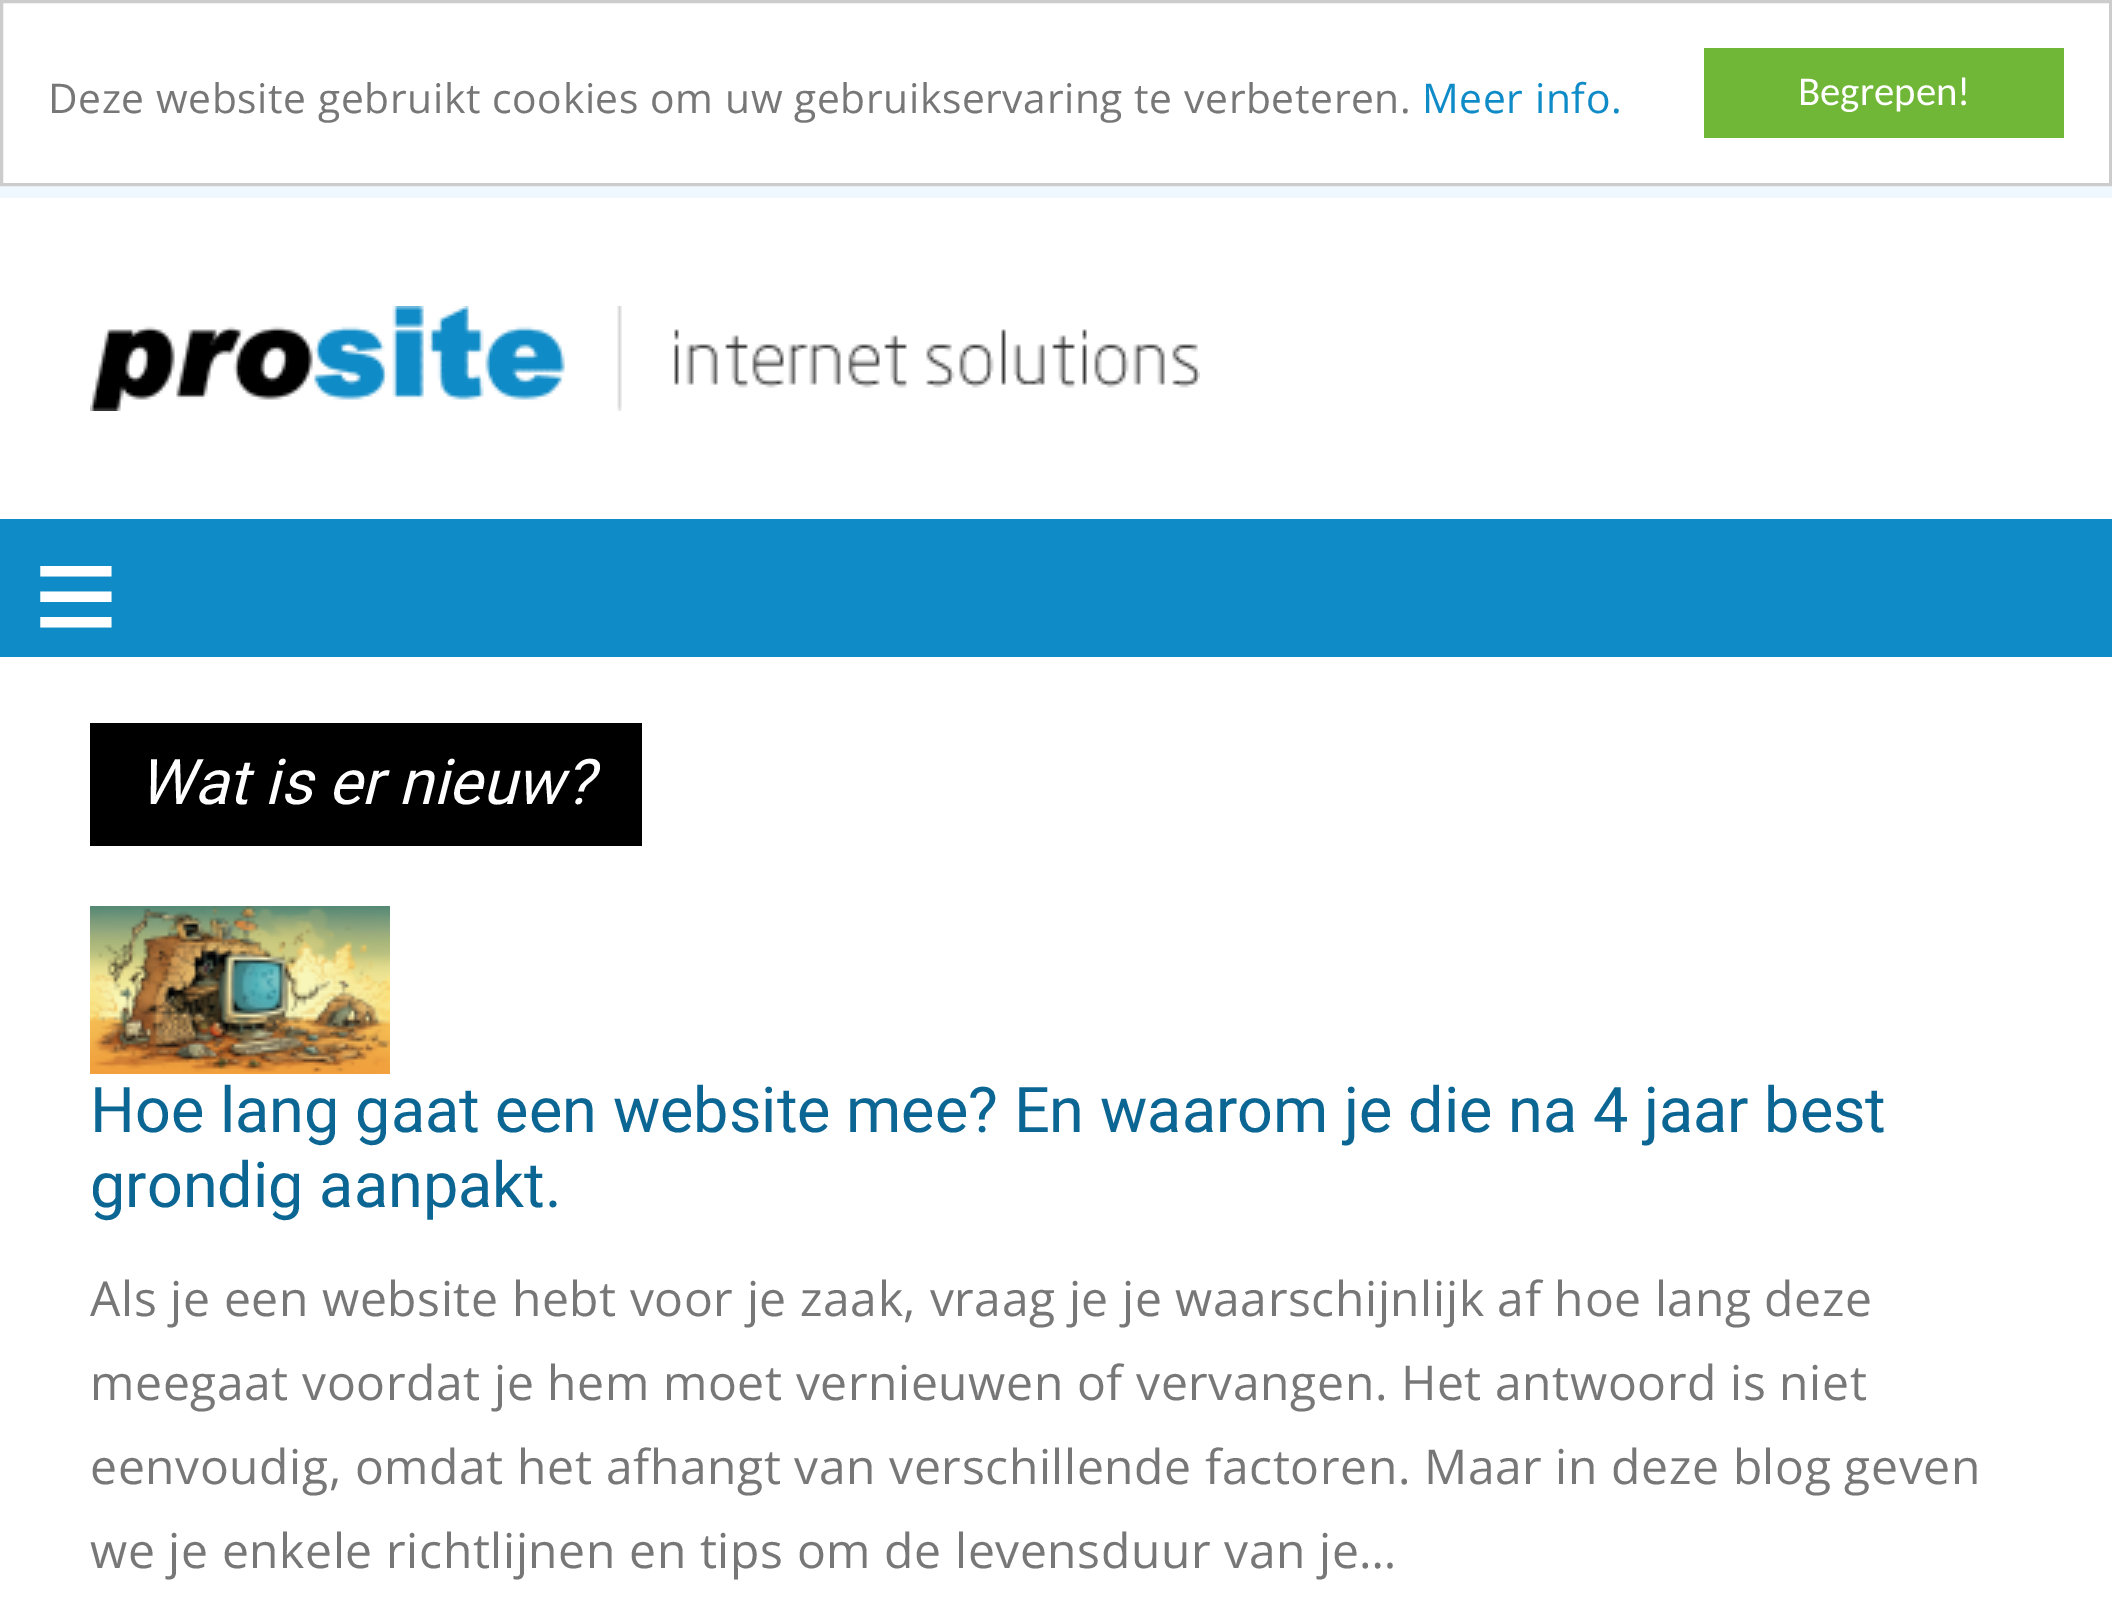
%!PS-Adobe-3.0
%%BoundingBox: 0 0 2112 1609
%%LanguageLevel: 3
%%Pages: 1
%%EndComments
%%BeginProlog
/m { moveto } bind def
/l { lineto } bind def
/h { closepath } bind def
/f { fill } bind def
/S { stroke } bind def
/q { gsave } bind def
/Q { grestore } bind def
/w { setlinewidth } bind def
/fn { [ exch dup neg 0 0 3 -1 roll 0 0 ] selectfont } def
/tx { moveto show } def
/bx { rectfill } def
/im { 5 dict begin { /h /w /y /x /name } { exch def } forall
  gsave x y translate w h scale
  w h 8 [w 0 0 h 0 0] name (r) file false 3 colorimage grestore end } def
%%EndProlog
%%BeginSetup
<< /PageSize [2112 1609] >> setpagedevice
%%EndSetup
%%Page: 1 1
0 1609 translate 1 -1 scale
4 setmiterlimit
0.941 0.973 1 setrgbcolor
0 0 2112 1609 bx
1 setgray
1.5 1.5 m 2110.5 1.5 l 2110.5 184.5 l 1.5 184.5 l h q f Q
0.8 setgray
3 w
S
/OpenSans-Regular 40.8 fn
0.467 setgray
48 113 m 0.6 0 (Deze website gebruikt cookies om uw gebruikservaring te verbeteren.) ashow
0.059 0.545 0.78 setrgbcolor
1422 113 m 0.6 0 (Meer info.) ashow
0.443 0.718 0.216 setrgbcolor
1704 48 360 90 bx
/Carlito-Regular 40.8 fn
1 setgray
(Begrepen!) 1798 105 tx
0 198 2112 321 bx
(image0.raw) 90 306 1110 105 im
0.059 0.545 0.78 setrgbcolor
0 519 2112 138 bx
/LiberationSans-Regular 147 fn
1 setgray
(≡) 33 645 tx
0 657 2112 952 bx
0 setgray
90 723 552 123 bx
/Roboto-Italic 63 fn
1 setgray
(Wat is er nieuw?) 138 804 tx
(image1.raw) 90 906 300 168 im
/Roboto-Regular 63 fn
0.043 0.4 0.576 setrgbcolor
(Hoe lang gaat een website mee? En waarom je die na 4 jaar best) 90 1132 tx
(grondig aanpakt.) 90 1207 tx
/OpenSans-Regular 48 fn
0.467 setgray
90 1316 m 0.6 0 (Als je een website hebt voor je zaak, vraag je je waarschijnlijk af hoe lang deze) ashow
90 1400 m 0.6 0 (meegaat voordat je hem moet vernieuwen of vervangen. Het antwoord is niet) ashow
90 1484 m 0.6 0 (eenvoudig, omdat het afhangt van verschillende factoren. Maar in deze blog geven) ashow
90 1568 m 0.6 0 (we je enkele richtlijnen en tips om de levensduur van je…) ashow
showpage
%%EOF
